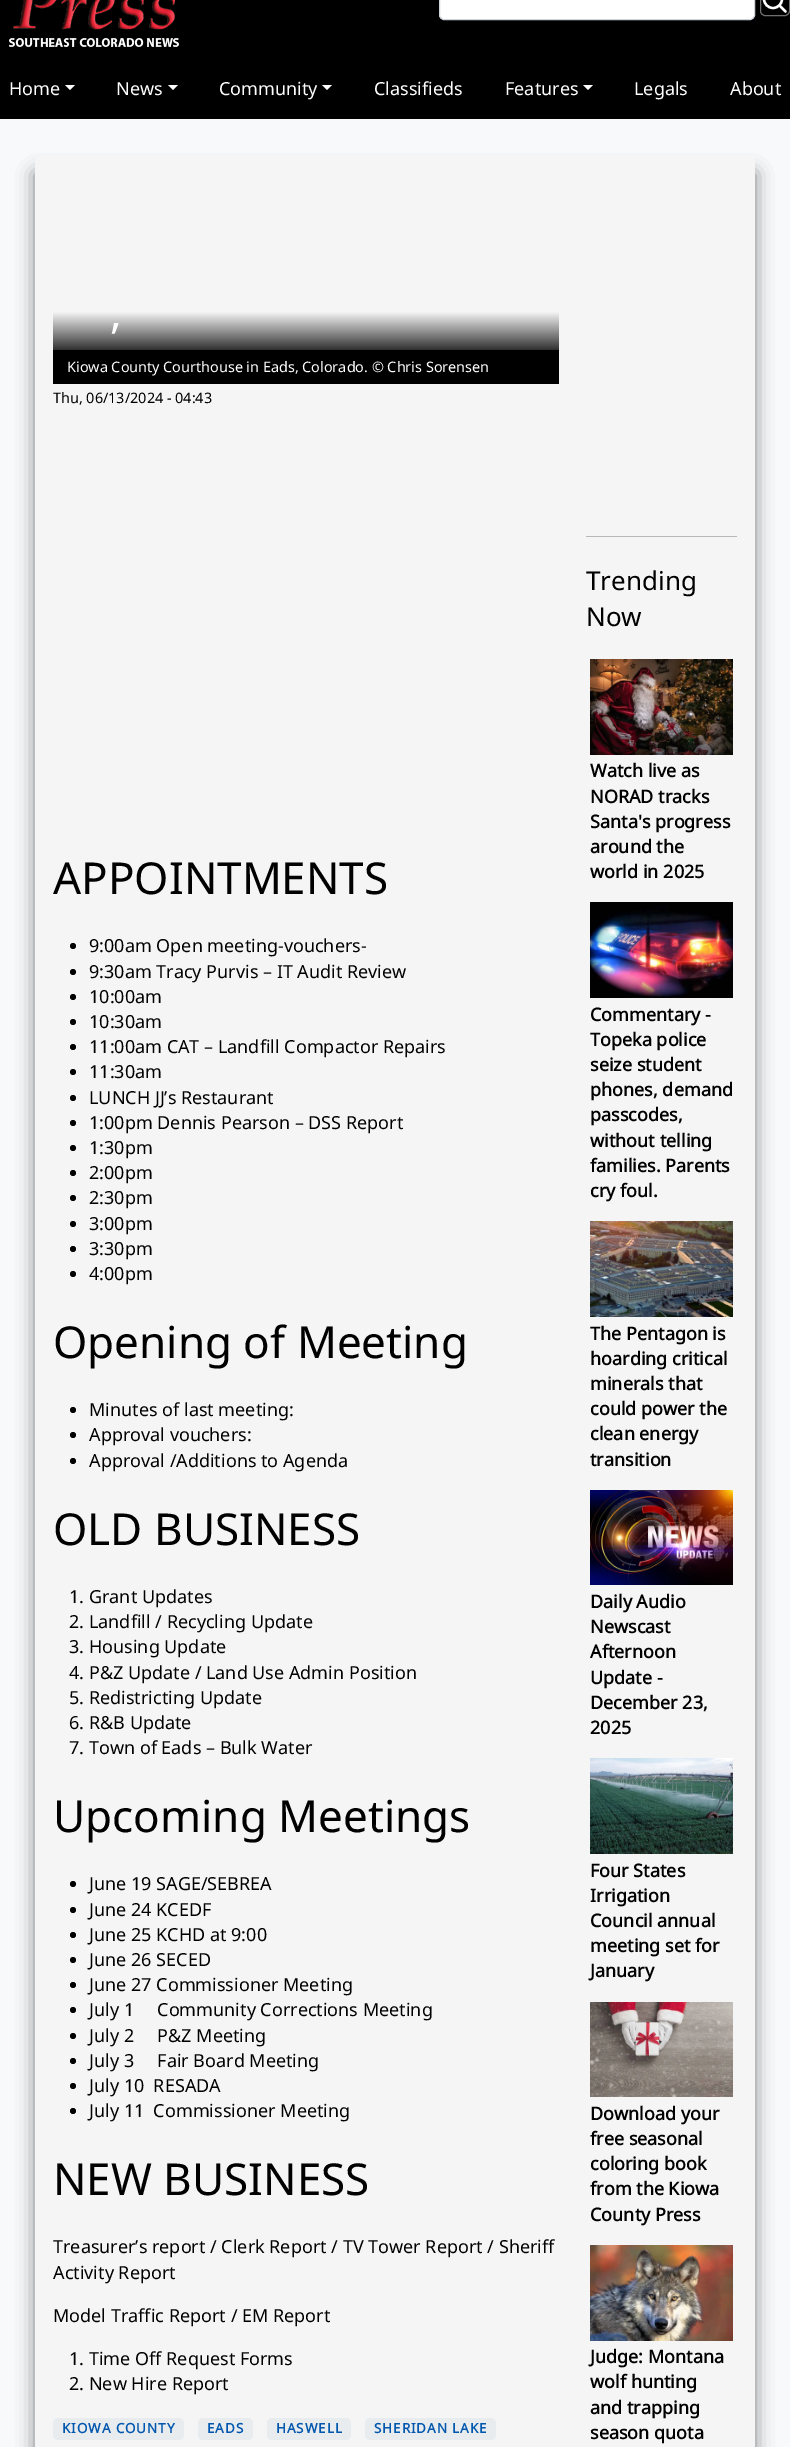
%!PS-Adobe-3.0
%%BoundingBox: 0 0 790 2447
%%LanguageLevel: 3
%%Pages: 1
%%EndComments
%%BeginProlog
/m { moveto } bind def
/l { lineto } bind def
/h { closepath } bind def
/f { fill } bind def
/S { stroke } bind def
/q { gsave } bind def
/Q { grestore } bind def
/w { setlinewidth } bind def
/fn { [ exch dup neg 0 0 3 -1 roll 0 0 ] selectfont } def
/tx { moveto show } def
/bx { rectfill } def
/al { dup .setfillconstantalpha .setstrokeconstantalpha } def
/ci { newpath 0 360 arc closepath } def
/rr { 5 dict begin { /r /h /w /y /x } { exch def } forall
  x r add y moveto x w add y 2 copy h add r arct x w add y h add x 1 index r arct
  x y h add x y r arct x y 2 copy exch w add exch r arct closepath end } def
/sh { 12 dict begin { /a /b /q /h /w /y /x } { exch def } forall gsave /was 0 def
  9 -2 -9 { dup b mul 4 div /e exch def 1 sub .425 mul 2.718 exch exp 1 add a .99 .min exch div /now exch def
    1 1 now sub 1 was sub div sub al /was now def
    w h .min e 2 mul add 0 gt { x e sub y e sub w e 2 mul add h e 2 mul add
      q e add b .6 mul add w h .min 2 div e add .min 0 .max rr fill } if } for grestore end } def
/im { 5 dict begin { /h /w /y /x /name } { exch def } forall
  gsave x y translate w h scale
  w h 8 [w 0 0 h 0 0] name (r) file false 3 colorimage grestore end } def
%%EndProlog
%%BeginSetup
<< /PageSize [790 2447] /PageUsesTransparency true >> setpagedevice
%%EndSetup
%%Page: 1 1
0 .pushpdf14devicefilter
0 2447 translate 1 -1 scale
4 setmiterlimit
0.973 0.976 0.98 setrgbcolor
0 0 790 2447 bx
0 setgray
0 0 790 119 bx
(image0.raw) 9 0 170 47 im
1 setgray
439.5 -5.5 315 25 4.5 rr q f Q
0.808 0.831 0.855 setrgbcolor
S
1 setgray
2.3 w
773 -1 9 ci S
1 setlinecap
1 setlinejoin
785.5 11.5 m 779.5 5.5 l S
0.431 0.435 0.439 setrgbcolor
1 w
0 setlinecap
0 setlinejoin
760.5 -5.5 29 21 4.5 rr S
/NotoSans-Regular 18 fn
1 setgray
(Home) 9 95 tx
65 85 m 75 85 l 70 90 l h f
(News) 116 95 tx
168 85 m 178 85 l 173 90 l h f
(Community) 219 95 tx
322 85 m 332 85 l 327 90 l h f
(Classifieds) 374 95 tx
(Features) 505 95 tx
583 85 m 593 85 l 588 90 l h f
(Legals) 634 95 tx
(About) 730 95 tx
0 setgray
35 173 720 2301 0 9 0.5 sh
0.961 setgray
35 155 720 2292 bx
q 53 312 m 559 312 l 559 350 l 53 350 l h clip newpath
<< /ShadingType 2 /ColorSpace /DeviceRGB /Coords [306 299 306 350] /Extend [true true] /Function << /FunctionType 3 /Domain [0 1] /Functions [<< /FunctionType 2 /Domain [0 1] /C0 [0.961 0.961 0.961] /C1 [0.961 0.961 0.961] /N 1 >> << /FunctionType 2 /Domain [0 1] /C0 [0.961 0.961 0.961] /C1 [0.192 0.192 0.192] /N 1 >>] /Bounds [0.25] /Encode [0 1 0 1] >> >> shfill Q
/NotoSans-Regular 44 fn
1 setgray
(,) 110 328 tx
0 setgray
53 350 506 34 bx
/NotoSans-Regular 14.4 fn
1 setgray
(Kiowa County Courthouse in Eads, Colorado. © Chris Sorensen) 67 372 tx
0 setgray
(Thu, 06/13/2024 - 04:43) 53 403 tx
/NotoSans-Regular 44 fn
(APPOINTMENTS) 53 894 tx
73 946 3 ci f
/NotoSans-Regular 18 fn
(9:00am Open meeting-vouchers-) 89 952 tx
73 972 3 ci f
(9:30am Tracy Purvis – IT Audit Review) 89 978 tx
73 997 3 ci f
(10:00am) 89 1003 tx
73 1022 3 ci f
(10:30am) 89 1028 tx
73 1047 3 ci f
(11:00am CAT – Landfill Compactor Repairs) 89 1053 tx
73 1072 3 ci f
(11:30am) 89 1078 tx
73 1098 3 ci f
(LUNCH JJ’s Restaurant) 89 1104 tx
73 1123 3 ci f
(1:00pm Dennis Pearson – DSS Report) 89 1129 tx
73 1148 3 ci f
(1:30pm) 89 1154 tx
73 1173 3 ci f
(2:00pm) 89 1179 tx
73 1198 3 ci f
(2:30pm) 89 1204 tx
73 1224 3 ci f
(3:00pm) 89 1230 tx
73 1249 3 ci f
(3:30pm) 89 1255 tx
73 1274 3 ci f
(4:00pm) 89 1280 tx
/NotoSans-Regular 44 fn
(Opening of Meeting) 53 1358 tx
73 1410 3 ci f
/NotoSans-Regular 18 fn
(Minutes of last meeting:) 89 1416 tx
73 1435 3 ci f
(Approval vouchers:) 89 1441 tx
73 1461 3 ci f
(Approval /Additions to Agenda) 89 1467 tx
/NotoSans-Regular 44 fn
(OLD BUSINESS) 53 1545 tx
/NotoSans-Regular 18 fn
(1. Grant Updates) 69 1603 tx
(2. Landfill / Recycling Update) 69 1628 tx
(3. Housing Update) 69 1653 tx
(4. P&Z Update / Land Use Admin Position) 69 1679 tx
(5. Redistricting Update) 69 1704 tx
(6. R&B Update) 69 1729 tx
(7. Town of Eads – Bulk Water) 69 1754 tx
/NotoSans-Regular 44 fn
(Upcoming Meetings) 53 1832 tx
73 1884 3 ci f
/NotoSans-Regular 18 fn
(June 19 SAGE/SEBREA) 89 1890 tx
73 1910 3 ci f
(June 24 KCEDF) 89 1916 tx
73 1935 3 ci f
(June 25 KCHD at 9:00) 89 1941 tx
73 1960 3 ci f
(June 26 SECED) 89 1966 tx
73 1985 3 ci f
(June 27 Commissioner Meeting) 89 1991 tx
73 2010 3 ci f
(July 1     Community Corrections Meeting) 89 2016 tx
73 2036 3 ci f
(July 2     P&Z Meeting) 89 2042 tx
73 2061 3 ci f
(July 3     Fair Board Meeting) 89 2067 tx
73 2086 3 ci f
(July 10  RESADA) 89 2092 tx
73 2111 3 ci f
(July 11  Commissioner Meeting) 89 2117 tx
/NotoSans-Regular 44 fn
(NEW BUSINESS) 53 2195 tx
/NotoSans-Regular 18 fn
(Treasurer’s report / Clerk Report / TV Tower Report / Sheriff) 53 2253 tx
(Activity Report) 53 2279 tx
(Model Traffic Report / EM Report) 53 2322 tx
(1. Time Off Request Forms) 69 2365 tx
(2. New Hire Report) 69 2390 tx
0.914 0.925 0.937 setrgbcolor
53 2418 131 22 5 rr f
/NotoSans-Bold 13.5 fn
0 0.341 0.678 setrgbcolor
62 2433 m 0.9 0 (KIOWA COUNTY) ashow
0.914 0.925 0.937 setrgbcolor
198 2418 55 22 5 rr f
0 0.341 0.678 setrgbcolor
207 2433 m 0.9 0 (EADS) ashow
0.914 0.925 0.937 setrgbcolor
267 2418 84 22 5 rr f
0 0.341 0.678 setrgbcolor
276 2433 m 0.9 0 (HASWELL) ashow
0.914 0.925 0.937 setrgbcolor
365 2418 131 22 5 rr f
0 0.341 0.678 setrgbcolor
374 2433 m 0.9 0 (SHERIDAN LAKE) ashow
0.722 setgray
586 536 151 1 bx
/NotoSans-Regular 26 fn
0 setgray
(Trending) 586 590 tx
(Now) 586 626 tx
(image1.raw) 590 659 143 96 im
/NotoSans-Bold 18 fn
(Watch live as) 590 777 tx
(NORAD tracks) 590 803 tx
(Santa's progress) 590 828 tx
(around the) 590 853 tx
(world in 2025) 590 878 tx
(image2.raw) 590 902 143 96 im
(Commentary -) 590 1021 tx
(Topeka police) 590 1046 tx
(seize student) 590 1071 tx
(phones, demand) 590 1096 tx
(passcodes,) 590 1121 tx
(without telling) 590 1147 tx
(families. Parents) 590 1172 tx
(cry foul.) 590 1197 tx
(image3.raw) 590 1221 143 96 im
(The Pentagon is) 590 1340 tx
(hoarding critical) 590 1365 tx
(minerals that) 590 1390 tx
(could power the) 590 1415 tx
(clean energy) 590 1440 tx
(transition) 590 1466 tx
(image4.raw) 590 1490 143 95 im
(Daily Audio) 590 1608 tx
(Newscast) 590 1633 tx
(Afternoon) 590 1658 tx
(Update -) 590 1684 tx
(December 23,) 590 1709 tx
(2025) 590 1734 tx
(image5.raw) 590 1758 143 96 im
(Four States) 590 1877 tx
(Irrigation) 590 1902 tx
(Council annual) 590 1927 tx
(meeting set for) 590 1952 tx
(January) 590 1977 tx
(image6.raw) 590 2002 143 95 im
(Download your) 590 2120 tx
(free seasonal) 590 2145 tx
(coloring book) 590 2170 tx
(from the Kiowa) 590 2195 tx
(County Press) 590 2221 tx
(image7.raw) 590 2245 143 96 im
(Judge: Montana) 590 2363 tx
(wolf hunting) 590 2388 tx
(and trapping) 590 2414 tx
(season quota) 590 2439 tx
.poppdf14devicefilter showpage
%%EOF
